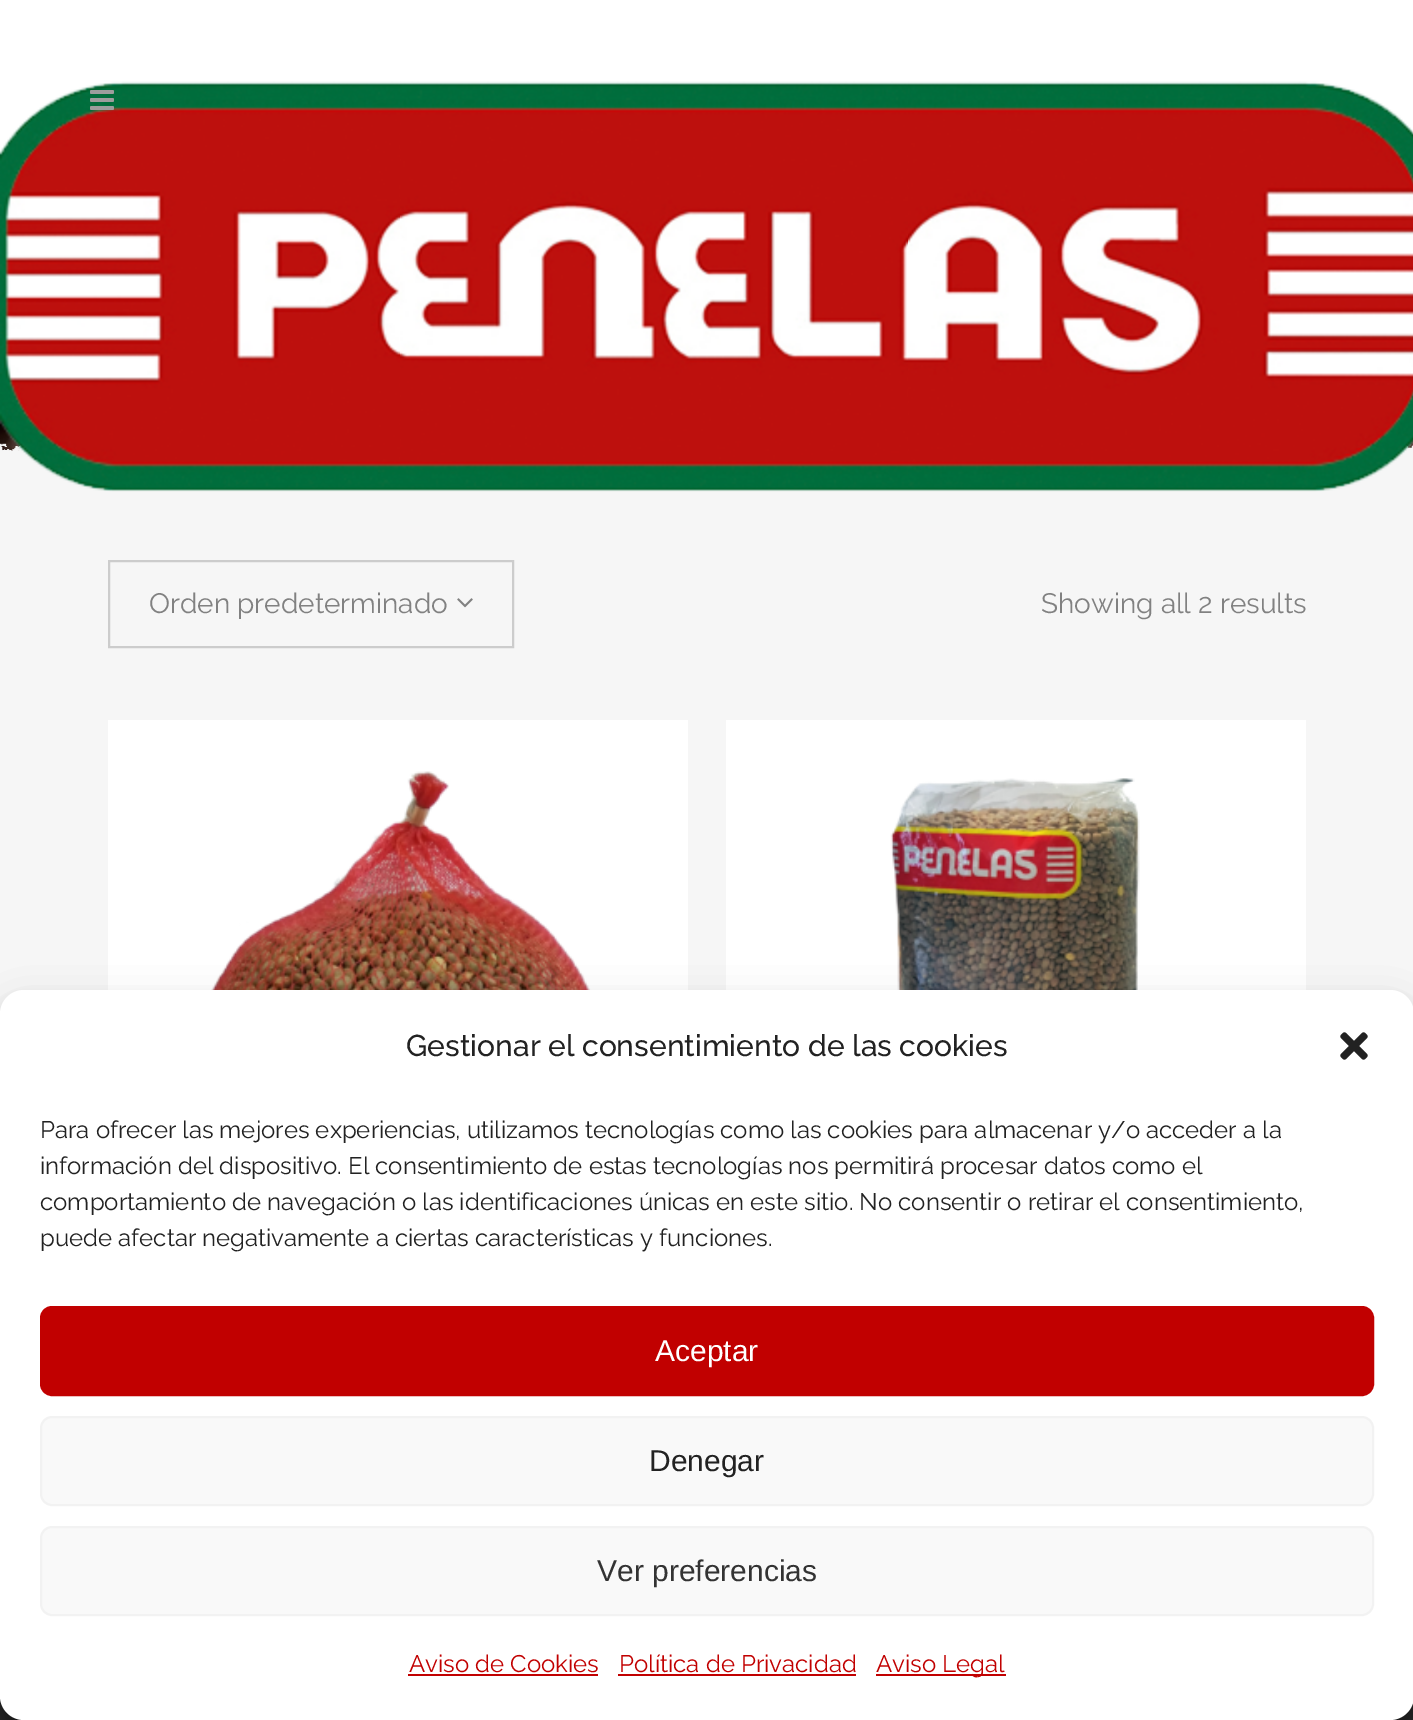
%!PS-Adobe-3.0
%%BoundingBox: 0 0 1413 1720
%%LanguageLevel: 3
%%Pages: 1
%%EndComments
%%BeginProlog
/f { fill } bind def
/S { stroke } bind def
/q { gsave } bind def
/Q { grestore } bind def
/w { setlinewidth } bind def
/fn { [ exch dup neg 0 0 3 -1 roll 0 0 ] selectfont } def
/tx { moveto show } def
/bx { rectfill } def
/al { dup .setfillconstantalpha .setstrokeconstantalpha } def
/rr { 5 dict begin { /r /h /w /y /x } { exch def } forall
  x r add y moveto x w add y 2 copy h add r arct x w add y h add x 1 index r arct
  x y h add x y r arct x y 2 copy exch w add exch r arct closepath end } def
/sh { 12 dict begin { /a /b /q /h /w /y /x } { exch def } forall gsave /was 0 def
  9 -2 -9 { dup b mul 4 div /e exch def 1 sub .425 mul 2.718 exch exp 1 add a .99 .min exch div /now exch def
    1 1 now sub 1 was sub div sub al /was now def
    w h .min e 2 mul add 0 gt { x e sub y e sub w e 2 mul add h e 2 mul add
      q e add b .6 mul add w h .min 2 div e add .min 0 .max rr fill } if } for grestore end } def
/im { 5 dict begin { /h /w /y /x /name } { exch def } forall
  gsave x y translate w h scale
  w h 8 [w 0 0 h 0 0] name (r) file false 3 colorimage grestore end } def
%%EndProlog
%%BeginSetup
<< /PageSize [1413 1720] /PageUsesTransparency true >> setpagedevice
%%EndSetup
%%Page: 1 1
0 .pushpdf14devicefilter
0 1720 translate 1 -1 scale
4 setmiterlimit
0.965 setgray
0 0 1413 1720 bx
1 setgray
0 0 1413 155 bx
(image2.raw) 0 419 1413 32 im
(image0.raw) 0 81 1413 411 im
(image1.raw) 90 90 24 20 im
0.8 setgray
2 w
109 561 404 86 rectstroke
/Raleway-Regular 28 fn
0.506 setgray
(Orden predeterminado) 149 613 tx
(image3.raw) 457 598 16 10 im
(Showing all 2 results) 1041 613 tx
1 setgray
108 720 580 270 bx
(image4.raw) 210 771 382 219 im
726 720 580 270 bx
(image5.raw) 890 778 250 212 im
0.149 setgray
0 1696 1413 24 bx
0 setgray
0 1002 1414 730 24 6 0.23 sh
0 1010 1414 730 24 20 0.19 sh
1 setgray
0 990 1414 730 24 rr f
/Raleway-Medium 30 fn
0.133 setgray
(Gestionar el consentimiento de las cookies) 406 1056 tx
(image6.raw) 1340 1032 28 28 im
/Raleway-Regular 24 fn
(Para ofrecer las mejores experiencias, utilizamos tecnologías como las cookies para almacenar y/o acceder a la) 40 1138 tx
(información del dispositivo. El consentimiento de estas tecnologías nos permitirá procesar datos como el) 40 1174 tx
(comportamiento de navegación o las identificaciones únicas en este sitio. No consentir o retirar el consentimiento,) 40 1210 tx
(puede afectar negativamente a ciertas características y funciones.) 40 1246 tx
0.757 0 0 setrgbcolor
41 1307 1332 88 11 rr q f Q
S
/LiberationSans-Regular 30 fn
1 setgray
(Aceptar) 655 1361 tx
0.976 setgray
41 1417 1332 88 11 rr q f Q
0.949 setgray
S
0.133 setgray
(Denegar) 649 1471 tx
0.976 setgray
41 1527 1332 88 11 rr q f Q
0.949 setgray
S
0.2 setgray
(Ver preferencias) 597 1581 tx
/Raleway-Regular 24 fn
0.757 0 0 setrgbcolor
(Aviso de Cookies) 409 1672 tx
408 1674 190 2 bx
(Política de Privacidad) 619 1672 tx
618 1674 238 2 bx
876 1674 130 2 bx
(Aviso Legal) 876 1672 tx
.poppdf14devicefilter showpage
%%EOF
